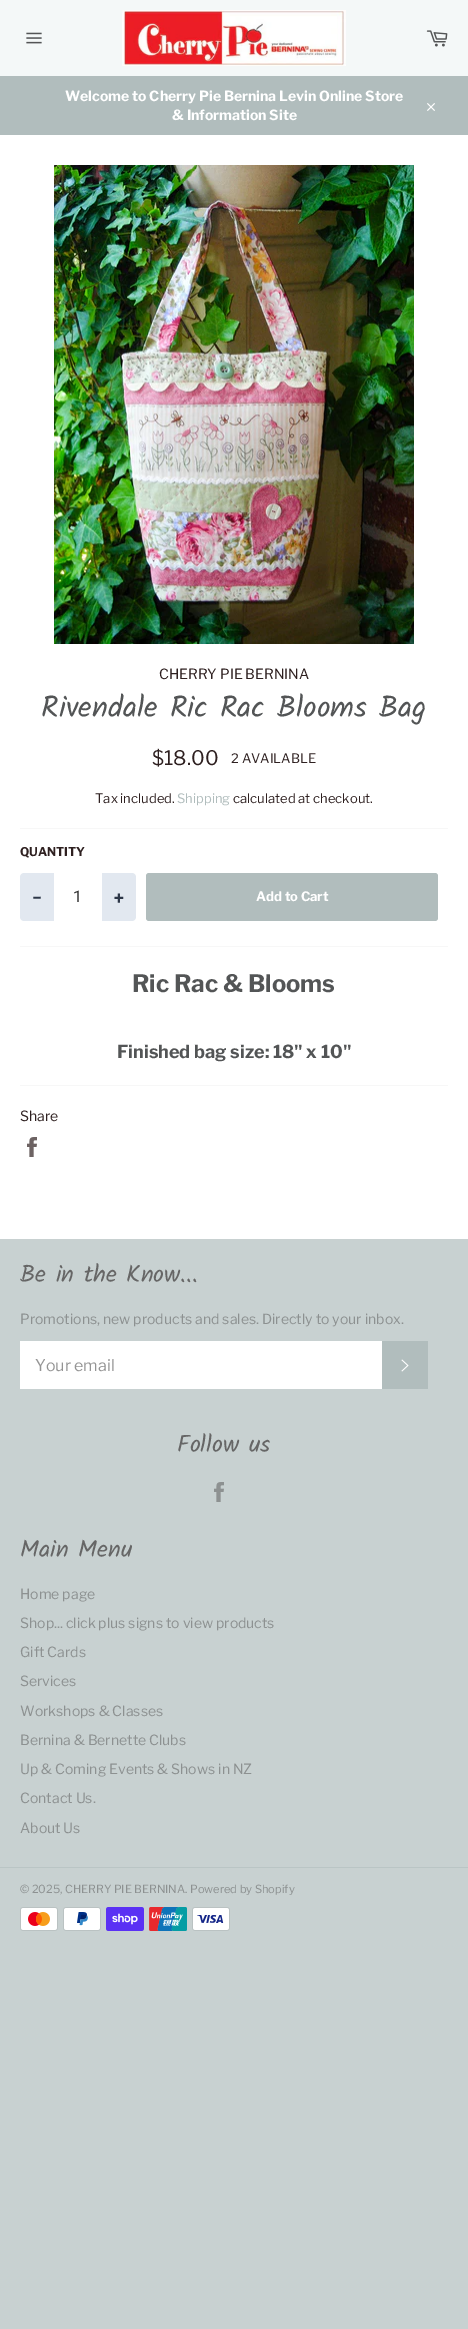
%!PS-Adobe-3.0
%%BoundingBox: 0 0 468 2329
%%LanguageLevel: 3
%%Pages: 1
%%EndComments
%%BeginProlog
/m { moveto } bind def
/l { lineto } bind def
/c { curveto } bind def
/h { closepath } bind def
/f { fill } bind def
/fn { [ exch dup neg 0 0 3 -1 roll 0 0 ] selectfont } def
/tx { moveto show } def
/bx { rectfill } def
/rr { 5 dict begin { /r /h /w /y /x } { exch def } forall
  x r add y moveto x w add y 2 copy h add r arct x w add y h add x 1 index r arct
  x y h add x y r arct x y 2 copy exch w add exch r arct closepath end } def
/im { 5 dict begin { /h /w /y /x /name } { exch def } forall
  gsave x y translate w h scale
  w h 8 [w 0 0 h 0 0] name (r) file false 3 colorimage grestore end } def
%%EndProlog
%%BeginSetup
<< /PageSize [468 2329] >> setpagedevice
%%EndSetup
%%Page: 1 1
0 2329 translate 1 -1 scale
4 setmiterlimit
0.784 0.82 0.82 setrgbcolor
0 0 468 2329 bx
0.957 0.973 0.973 setrgbcolor
0 0 468 76 bx
(image0.raw) 26 32 16 12 im
(image1.raw) 122 10 224 56 im
(image2.raw) 426 30 22 17 im
0.694 0.741 0.741 setrgbcolor
0 76 468 59 bx
/LibreFranklin-Bold 14 fn
1 setgray
(Welcome to Cherry Pie Bernina Levin Online Store) 65 101 tx
(& Information Site) 172 120 tx
(image3.raw) 427 103 8 8 im
0 135 468 1104 bx
(image4.raw) 54 165 360 479 im
/LibreFranklin-Regular 14 fn
0.18 0.125 0.125 setrgbcolor
(CHERRY PIE BERNINA) 159 679 tx
/Kalam-Regular 30 fn
0.325 0.333 0.337 setrgbcolor
(Rivendale Ric Rac Blooms Bag) 41 717 tx
/LibreFranklin-Regular 20 fn
0.18 0.125 0.125 setrgbcolor
($18.00) 152 765 tx
/LibreFranklin-Regular 13 fn
(2 AVAILABLE) 231 763 tx
(Tax included.) 95 803 tx
0.694 0.741 0.741 setrgbcolor
(Shipping) 177 803 tx
0.18 0.125 0.125 setrgbcolor
(calculated at checkout.) 233 803 tx
0.969 setgray
20 828 428 1 bx
/LibreFranklin-Bold 12 fn
0.18 0.125 0.125 setrgbcolor
(QUANTITY) 20 856 tx
0.886 0.91 0.941 setrgbcolor
24 873 m 54 873 l 54 921 l 24 921 l 22 921 20 919 20 917 c 20 877 l 20 875 22 873 24 873 c h f
/Roboto-Bold 18 fn
0.176 0.216 0.282 setrgbcolor
(−) 32 904 tx
/Roboto-Regular 16 fn
0.2 setgray
(1) 73 902 tx
0.886 0.91 0.941 setrgbcolor
102 873 m 132 873 l 134 873 136 875 136 877 c 136 917 l 136 919 134 921 132 921 c 102 921 l h f
/Roboto-Bold 18 fn
0.176 0.216 0.282 setrgbcolor
(+) 114 904 tx
0.694 0.741 0.741 setrgbcolor
146 873 292 48 3 rr f
/LibreFranklin-Bold 13 fn
1 setgray
(Add to Cart) 256 901 tx
0.969 setgray
20 946 428 1 bx
/LibreFranklin-Bold 24 fn
0.325 0.333 0.337 setrgbcolor
(Ric Rac & Blooms) 132 992 tx
/LibreFranklin-Bold 18 fn
(Finished bag size: 18" x 10") 117 1058 tx
0.969 setgray
20 1085 428 1 bx
/LibreFranklin-Regular 14 fn
0.18 0.125 0.125 setrgbcolor
(Share) 20 1121 tx
(image5.raw) 27 1137 10 20 im
/Kalam-Regular 24 fn
0.4 setgray
(Be in the Know...) 20 1282 tx
/LibreFranklin-Regular 14 fn
0.553 0.569 0.569 setrgbcolor
(Promotions, new products and sales. Directly to your inbox.) 20 1324 tx
1 setgray
20 1341 362 48 bx
/LibreFranklin-Regular 16 fn
0.58 setgray
(Your email) 35 1371 tx
0.694 0.741 0.741 setrgbcolor
382 1341 46 48 bx
(image6.raw) 401 1359 8 13 im
/Kalam-Regular 24 fn
0.4 setgray
(Follow us) 177 1452 tx
(image7.raw) 214 1482 10 20 im
(Main Menu) 20 1557 tx
/LibreFranklin-Regular 14 fn
0.553 0.569 0.569 setrgbcolor
(Home page) 20 1599 tx
(Shop... click plus signs to view products) 20 1628 tx
(Gift Cards) 20 1657 tx
(Services) 20 1686 tx
(Workshops & Classes) 20 1716 tx
(Bernina & Bernette Clubs) 20 1745 tx
(Up & Coming Events & Shows in NZ) 20 1774 tx
(Contact Us.) 20 1803 tx
(About Us) 20 1833 tx
0.729 0.773 0.773 setrgbcolor
0 1867 468 1 bx
/LibreFranklin-Regular 11.2 fn
0.553 0.569 0.569 setrgbcolor
(© 2025, CHERRY PIE BERNINA. Powered by Shopify) 20 1893 tx
(image8.raw) 20 1907 38 24 im
(image9.raw) 63 1907 38 24 im
(image10.raw) 106 1907 38 24 im
(image11.raw) 149 1907 38 24 im
(image12.raw) 192 1907 38 24 im
showpage
%%EOF
